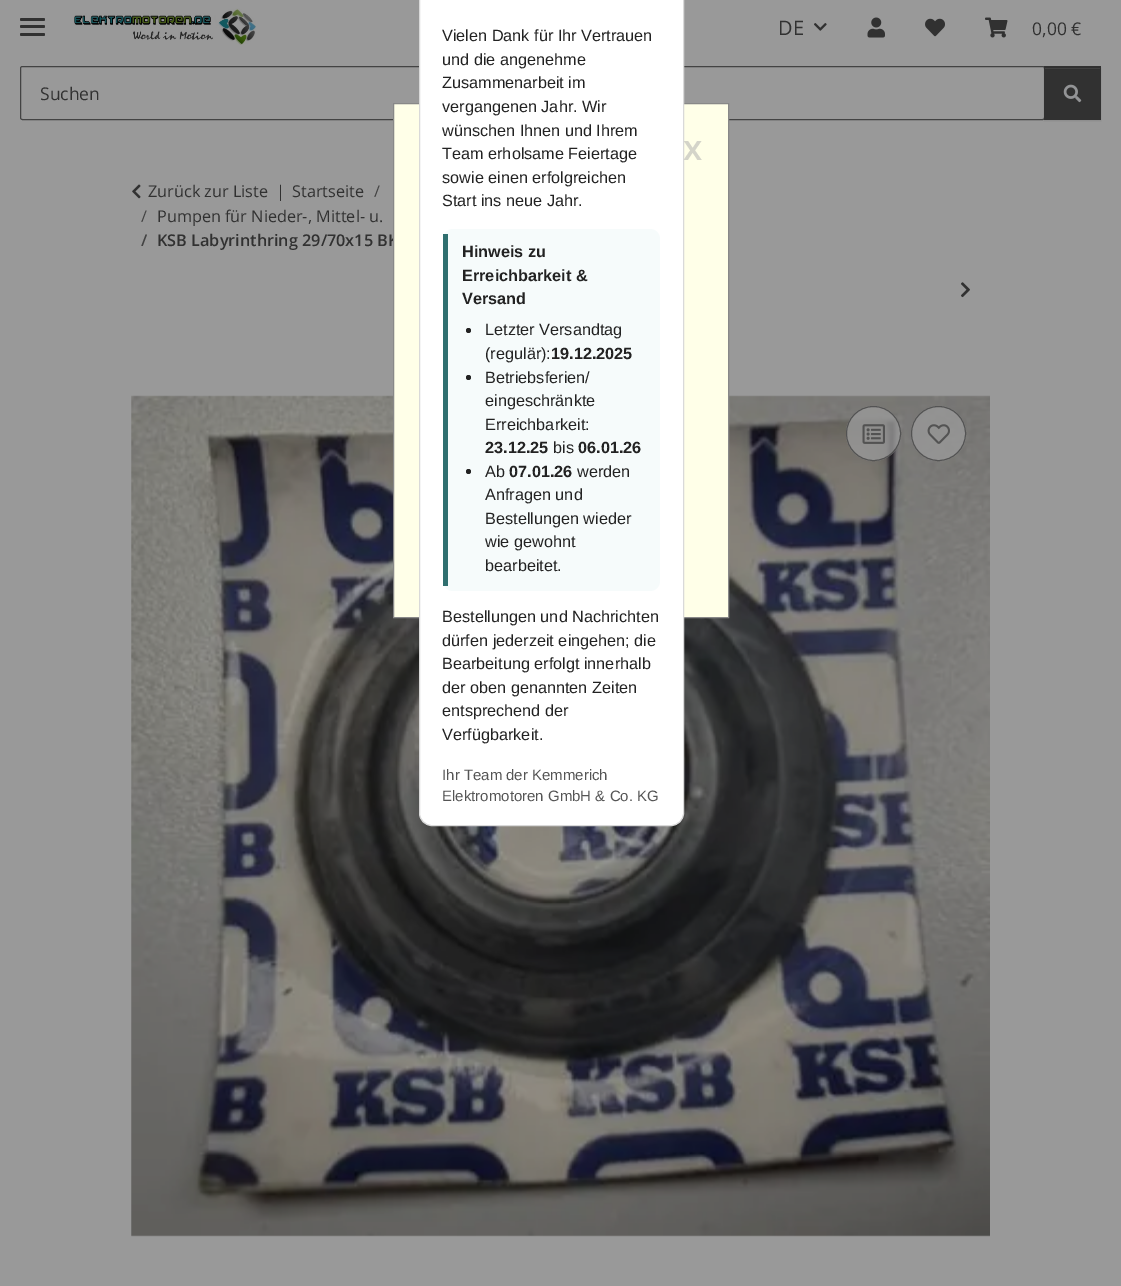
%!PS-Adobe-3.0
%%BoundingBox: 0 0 1121 1286
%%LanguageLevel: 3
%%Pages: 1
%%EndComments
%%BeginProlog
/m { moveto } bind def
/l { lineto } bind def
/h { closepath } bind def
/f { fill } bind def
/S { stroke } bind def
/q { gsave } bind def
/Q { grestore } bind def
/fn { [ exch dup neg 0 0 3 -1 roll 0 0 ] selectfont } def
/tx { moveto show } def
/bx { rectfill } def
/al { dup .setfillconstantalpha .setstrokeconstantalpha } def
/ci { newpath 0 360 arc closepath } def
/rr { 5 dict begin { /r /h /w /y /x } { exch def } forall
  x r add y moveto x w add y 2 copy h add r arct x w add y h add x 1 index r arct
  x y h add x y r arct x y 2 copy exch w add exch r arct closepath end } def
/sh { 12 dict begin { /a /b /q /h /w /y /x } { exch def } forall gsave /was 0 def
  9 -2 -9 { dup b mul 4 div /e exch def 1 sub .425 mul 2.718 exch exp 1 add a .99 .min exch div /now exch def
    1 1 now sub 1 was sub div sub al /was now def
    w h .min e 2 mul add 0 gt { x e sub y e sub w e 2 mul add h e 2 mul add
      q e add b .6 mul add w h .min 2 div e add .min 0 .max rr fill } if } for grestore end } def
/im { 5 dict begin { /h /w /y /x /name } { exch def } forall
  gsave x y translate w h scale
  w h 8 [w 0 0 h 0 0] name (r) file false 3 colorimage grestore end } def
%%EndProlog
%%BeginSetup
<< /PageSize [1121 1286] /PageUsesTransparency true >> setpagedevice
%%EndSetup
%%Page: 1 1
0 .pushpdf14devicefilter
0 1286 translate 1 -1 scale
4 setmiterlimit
0.6 setgray
0 0 1121 1286 bx
0.192 setgray
20 25 25 3 1.5 rr f
20 18 25 3 1.5 rr f
20 33 25 3 1.5 rr f
(image0.raw) 74 8 182 37 im
/OpenSans-Regular 20 fn
(DE) 778 35 tx
(image1.raw) 814 23 13 8 im
(image2.raw) 867 17 18 21 im
(image3.raw) 925 18 20 19 im
(image4.raw) 985 17 23 21 im
/OpenSans-Regular 17.5 fn
(0,00 €) 1032 35 tx
0.263 setgray
20.5 66.5 1024 53 2 rr S
0.192 setgray
(Suchen) 40 100 tx
0 setgray
1044 68 57 53 0 0.5 0.07 sh
0.192 setgray
1044 66 57 54 bx
0.255 setgray
1045 68 55 1 bx
(image5.raw) 1063 84 19 19 im
(image6.raw) 132 184 9 15 im
/OpenSans-Regular 16.25 fn
0.192 setgray
(Zurück zur Liste) 148 197 tx
(|) 276 197 tx
(Startseite) 292 197 tx
0.263 setgray
(/) 374 197 tx
(/) 141 222 tx
0.192 setgray
(Pumpen für Nieder-, Mittel- u.) 157 222 tx
/OpenSans-SemiBold 16.25 fn
0.263 setgray
(/) 141 246 tx
0.192 setgray
(KSB Labyrinthring 29/70x15 BK) 157 246 tx
(image7.raw) 961 282 9 16 im
(image8.raw) 131 395 859 842 im
0.8 al
0.6 setgray
873.5 433.5 27.5 ci f
0.263 setgray
873.5 433.5 27 ci S
1 al
(image9.raw) 862 424 23 20 im
0.8 al
0.6 setgray
938.5 433.5 27.5 ci f
0.263 setgray
938.5 433.5 27 ci S
1 al
(image10.raw) 927 424 23 20 im
1 1 0.91 setrgbcolor
393.5 103.5 m 728.5 103.5 l 728.5 617.5 l 393.5 617.5 l h q f Q
0.533 setgray
S
1 setgray
419.5 -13.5 264 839 12.5 rr q f Q
0.851 setgray
S
/LiberationSans-Regular 16.25 fn
0.133 setgray
(Vielen Dank für Ihr Vertrauen) 442 41 tx
(und die angenehme) 442 65 tx
(Zusammenarbeit im) 442 88 tx
(vergangenen Jahr. Wir) 442 112 tx
(wünschen Ihnen und Ihrem) 442 136 tx
(Team erholsame Feiertage) 442 159 tx
(sowie einen erfolgreichen) 442 183 tx
(Start ins neue Jahr.) 442 206 tx
0.965 0.984 0.984 setrgbcolor
443 229 217 362 10 rr f
0.184 0.435 0.435 setrgbcolor
443 234 5 352 bx
/LiberationSans-Bold 16.25 fn
0.133 setgray
(Hinweis zu) 462 257 tx
(Erreichbarkeit &) 462 281 tx
(Versand) 462 304 tx
468.5 330.5 2.5 ci f
/LiberationSans-Regular 16.25 fn
(Letzter Versandtag) 485 335 tx
(\(regulär\):) 485 359 tx
/LiberationSans-Bold 16.25 fn
(19.12.2025) 551 359 tx
468.5 377.5 2.5 ci f
/LiberationSans-Regular 16.25 fn
(Betriebsferien/) 485 383 tx
(eingeschränkte) 485 406 tx
(Erreichbarkeit:) 485 430 tx
/LiberationSans-Bold 16.25 fn
(23.12.25) 485 453 tx
/LiberationSans-Regular 16.25 fn
(bis) 553 453 tx
/LiberationSans-Bold 16.25 fn
(06.01.26) 578 453 tx
468.5 471.5 2.5 ci f
/LiberationSans-Regular 16.25 fn
(Ab) 485 477 tx
/LiberationSans-Bold 16.25 fn
(07.01.26) 509 477 tx
/LiberationSans-Regular 16.25 fn
(werden) 577 477 tx
(Anfragen und) 485 500 tx
(Bestellungen wieder) 485 524 tx
(wie gewohnt) 485 547 tx
(bearbeitet.) 485 571 tx
(Bestellungen und Nachrichten) 442 622 tx
(dürfen jederzeit eingehen; die) 442 646 tx
(Bearbeitung erfolgt innerhalb) 442 669 tx
(der oben genannten Zeiten) 442 693 tx
(entsprechend der) 442 716 tx
(Verfügbarkeit.) 442 740 tx
/LiberationSans-Regular 15 fn
0.333 setgray
(Ihr Team der Kemmerich) 442 780 tx
(Elektromotoren GmbH & Co. KG) 442 801 tx
/OpenSans-SemiBold 35 fn
0.831 0.831 0.788 setrgbcolor
(x) 683 160 tx
.poppdf14devicefilter showpage
%%EOF
